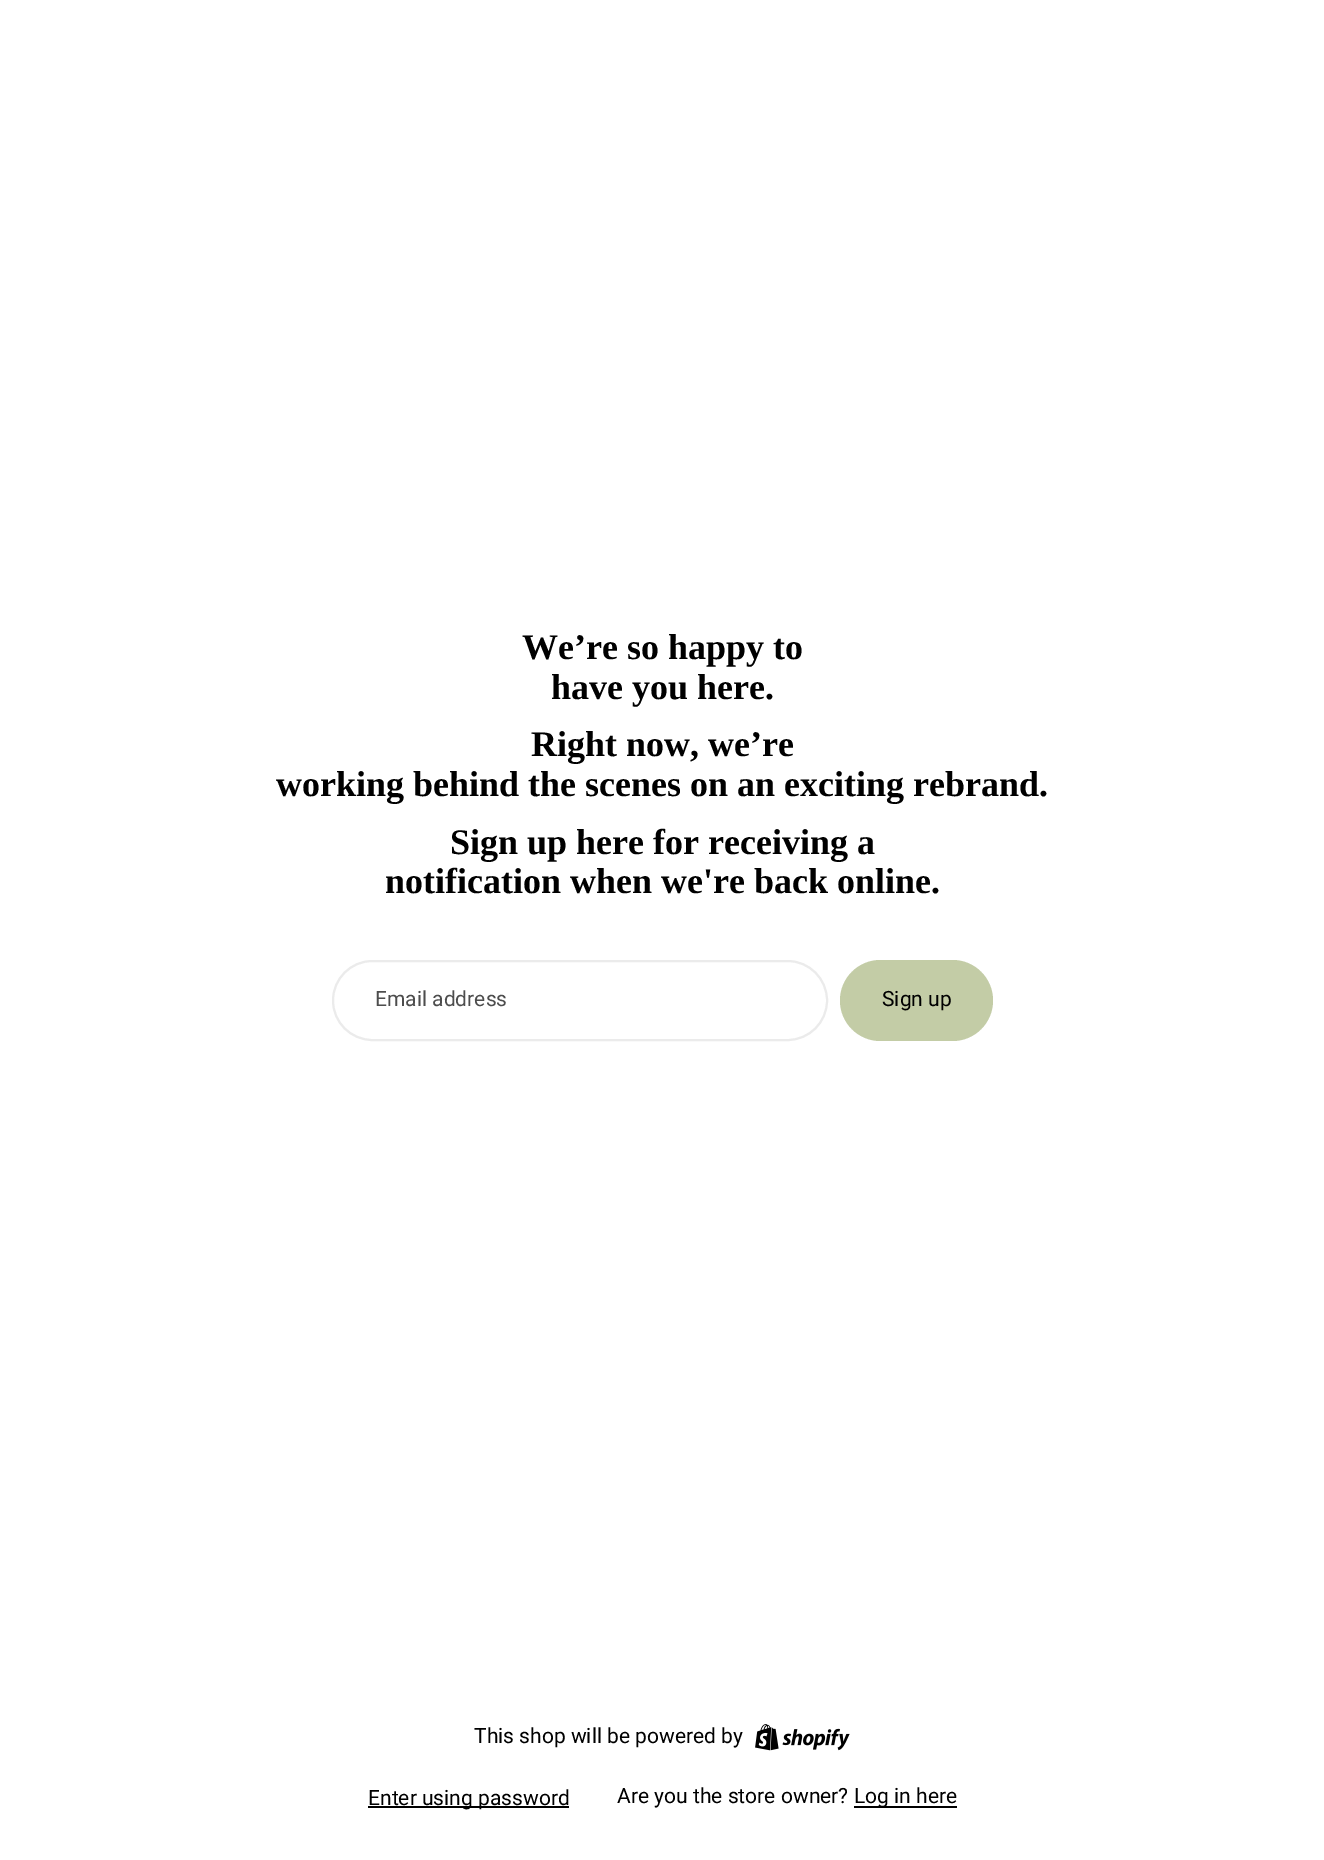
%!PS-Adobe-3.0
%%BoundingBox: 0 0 1324 1860
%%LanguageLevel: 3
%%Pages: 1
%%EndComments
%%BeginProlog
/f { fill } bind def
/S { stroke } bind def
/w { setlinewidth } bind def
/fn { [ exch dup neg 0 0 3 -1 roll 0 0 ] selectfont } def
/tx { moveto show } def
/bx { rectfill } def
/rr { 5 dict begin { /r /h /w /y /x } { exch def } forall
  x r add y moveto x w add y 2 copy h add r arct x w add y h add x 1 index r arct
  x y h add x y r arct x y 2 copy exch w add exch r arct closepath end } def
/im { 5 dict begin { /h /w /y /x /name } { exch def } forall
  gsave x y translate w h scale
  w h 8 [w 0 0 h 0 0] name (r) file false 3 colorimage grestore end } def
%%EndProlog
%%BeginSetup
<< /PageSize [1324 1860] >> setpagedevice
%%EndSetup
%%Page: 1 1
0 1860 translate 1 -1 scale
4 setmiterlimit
1 setgray
0 0 1324 1860 bx
/LiberationSerif-Bold 36 fn
0 setgray
(We’re so happy to) 522 659 tx
(have you here.) 551 699 tx
(Right now, we’re) 531 756 tx
(working behind the scenes on an exciting rebrand.) 276 796 tx
(Sign up here for receiving a) 450 854 tx
(notification when we're back online.) 385 893 tx
0.922 setgray
2 w
333 961 494 79 39.5 rr S
/Roboto-Regular 21 fn
0.302 setgray
(Email address) 375 1006 tx
0.765 0.8 0.651 setrgbcolor
840 960 153 81 40.5 rr f
0 setgray
(Sign up) 882 1006 tx
(This shop will be powered by) 474 1743 tx
(image0.raw) 755 1724 95 27 im
368 1806 201 2 bx
(Enter using password) 368 1805 tx
(Are you the store owner?) 617 1803 tx
854 1806 103 2 bx
(Log in here) 854 1803 tx
showpage
%%EOF
